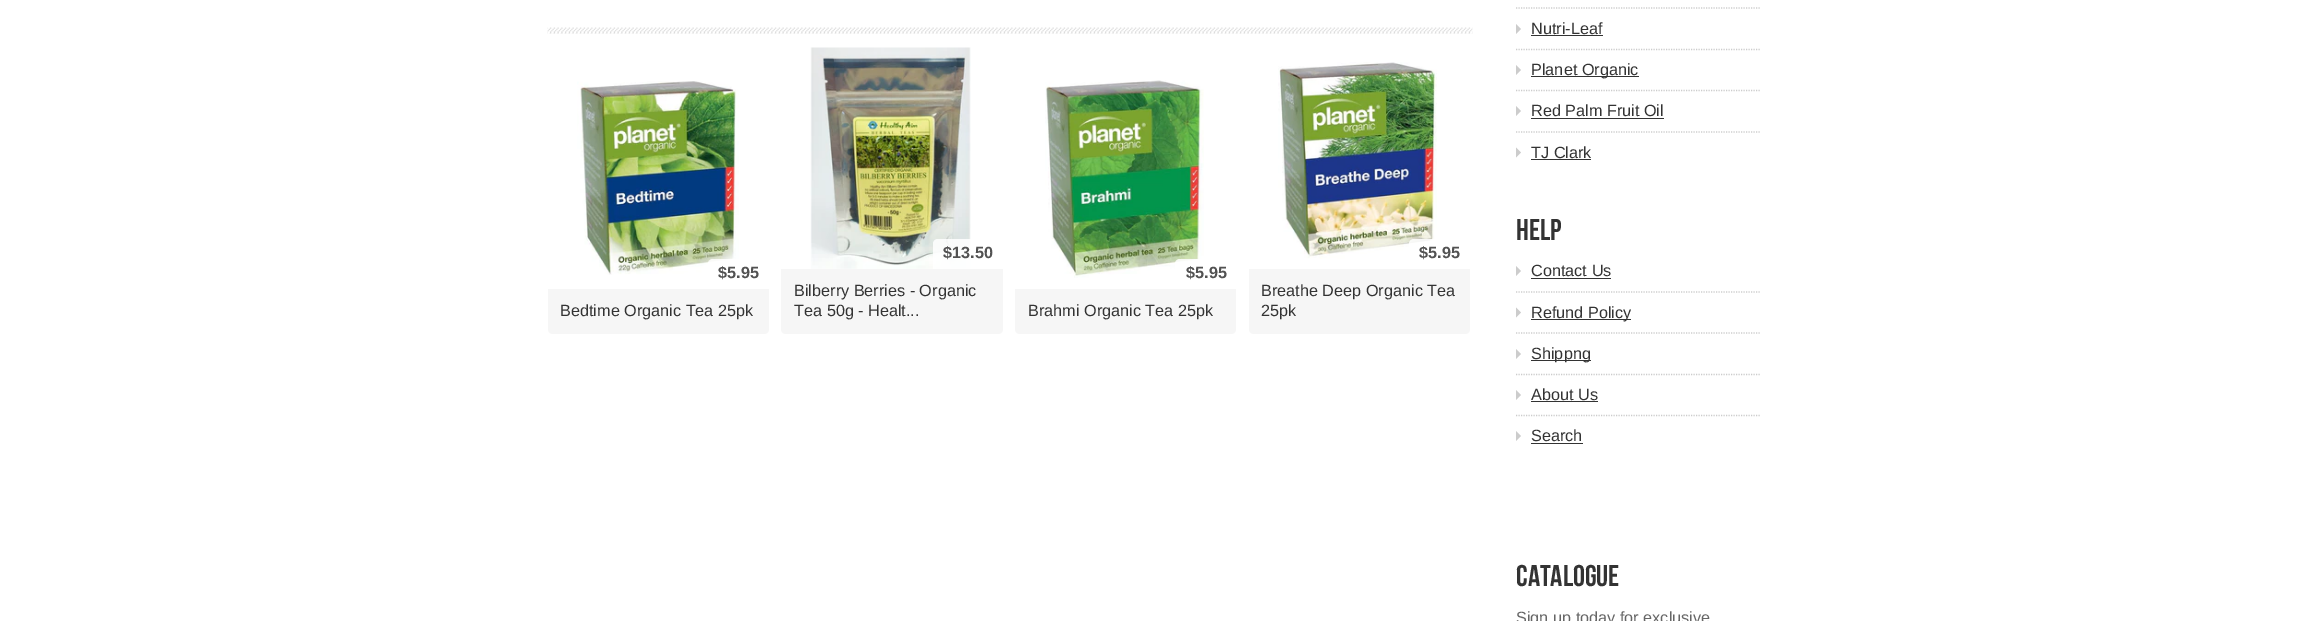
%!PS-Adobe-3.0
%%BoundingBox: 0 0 2320 621
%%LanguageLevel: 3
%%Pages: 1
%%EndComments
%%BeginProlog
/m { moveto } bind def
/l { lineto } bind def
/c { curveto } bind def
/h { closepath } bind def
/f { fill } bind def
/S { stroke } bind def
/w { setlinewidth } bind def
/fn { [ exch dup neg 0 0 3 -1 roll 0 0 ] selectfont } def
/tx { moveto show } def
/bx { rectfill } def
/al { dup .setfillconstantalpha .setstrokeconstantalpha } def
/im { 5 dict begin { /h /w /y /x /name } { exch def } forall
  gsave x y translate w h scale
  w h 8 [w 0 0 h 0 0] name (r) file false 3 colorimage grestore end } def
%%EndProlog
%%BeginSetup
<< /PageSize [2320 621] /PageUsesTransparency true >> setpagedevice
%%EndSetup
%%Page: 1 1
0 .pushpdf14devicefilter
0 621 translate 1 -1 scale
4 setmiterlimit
1 setgray
0 0 2320 621 bx
(image0.raw) 547 27 926 7 im
(image1.raw) 577 81 162 194 im
0.85 al
713 259 m 769 259 l 769 289 l 708 289 l 708 264 l 708 261 710 259 713 259 c h f
/LiberationSans-Bold 16.25 fn
1 al
0.322 setgray
($5.95) 718 278 tx
0.965 setgray
548 289 m 769 289 l 769 329 l 769 332 767 334 764 334 c 553 334 l 550 334 548 332 548 329 c h f
/LiberationSans-Regular 16.25 fn
0.2 setgray
(Bedtime Organic Tea 25pk) 560 316 tx
(image2.raw) 810 47 161 222 im
0.85 al
1 setgray
938 239 m 1003 239 l 1003 269 l 933 269 l 933 244 l 933 241 935 239 938 239 c h f
/LiberationSans-Bold 16.25 fn
1 al
0.322 setgray
($13.50) 943 258 tx
0.965 setgray
781 269 m 1003 269 l 1003 329 l 1003 332 1001 334 998 334 c 786 334 l 783 334 781 332 781 329 c h f
/LiberationSans-Regular 16.25 fn
0.2 setgray
(Bilberry Berries - Organic) 794 296 tx
(Tea 50g - Healt...) 794 316 tx
(image3.raw) 1045 80 159 198 im
0.85 al
1 setgray
1180 259 m 1236 259 l 1236 289 l 1175 289 l 1175 264 l 1175 261 1177 259 1180 259 c h f
/LiberationSans-Bold 16.25 fn
1 al
0.322 setgray
($5.95) 1186 278 tx
0.965 setgray
1015 289 m 1236 289 l 1236 329 l 1236 332 1234 334 1231 334 c 1020 334 l 1017 334 1015 332 1015 329 c h f
/LiberationSans-Regular 16.25 fn
0.2 setgray
(Brahmi Organic Tea 25pk) 1028 316 tx
(image4.raw) 1278 62 159 197 im
0.85 al
1 setgray
1414 239 m 1470 239 l 1470 269 l 1409 269 l 1409 244 l 1409 241 1411 239 1414 239 c h f
/LiberationSans-Bold 16.25 fn
1 al
0.322 setgray
($5.95) 1419 258 tx
0.965 setgray
1249 269 m 1470 269 l 1470 329 l 1470 332 1468 334 1465 334 c 1254 334 l 1251 334 1249 332 1249 329 c h f
/LiberationSans-Regular 16.25 fn
0.2 setgray
(Breathe Deep Organic Tea) 1261 296 tx
(25pk) 1261 316 tx
0.8 setgray
1.2 w
[1.25 1.25] 0 setdash
1516 8 m 1760 8 l S
1516 49.5 m 1760 49.5 l S
1516 34 m 1516 24 l 1521 29 l h 1516 75 m 1516 65 l 1521 70 l h f
0.2 setgray
(Nutri-Leaf) 1531 34 tx
1531 35 72 1 bx
1531 76 108 1 bx
(Planet Organic) 1531 75 tx
0.8 setgray
1516 90.5 m 1760 90.5 l S
1516 132 m 1760 132 l S
1516 116 m 1516 106 l 1521 111 l h 1516 157.5 m 1516 147.5 l 1521 152.5 l h f
0.2 setgray
(Red Palm Fruit Oil) 1531 116 tx
1531 118 133 1 bx
(TJ Clark) 1531 158 tx
1531 159 60 1 bx
/BebasNeue-Regular 30 fn
(HELP) 1516 240 tx
0.8 setgray
1516 292 m 1760 292 l S
1516 276 m 1516 266 l 1521 271 l h 1516 317.5 m 1516 307.5 l 1521 312.5 l h f
/LiberationSans-Regular 16.25 fn
0.2 setgray
(Contact Us) 1531 276 tx
1531 278 80 1 bx
1531 319 100 1 bx
(Refund Policy) 1531 318 tx
0.8 setgray
1516 333 m 1760 333 l S
1516 374.5 m 1760 374.5 l S
1516 359 m 1516 349 l 1521 354 l h 1516 400 m 1516 390 l 1521 395 l h f
0.2 setgray
1531 360 60 1 bx
(Shippng) 1531 359 tx
(About Us) 1531 400 tx
1531 401 67 1 bx
0.8 setgray
1516 415.5 m 1760 415.5 l S
1516 441 m 1516 431 l 1521 436 l h f
0.2 setgray
(Search) 1531 441 tx
1531 443 52 1 bx
/BebasNeue-Regular 30 fn
(Catalogue) 1516 586 tx
/LiberationSans-Regular 16.25 fn
0.4 setgray
(Sign up today for exclusive) 1516 623 tx
.poppdf14devicefilter showpage
%%EOF
